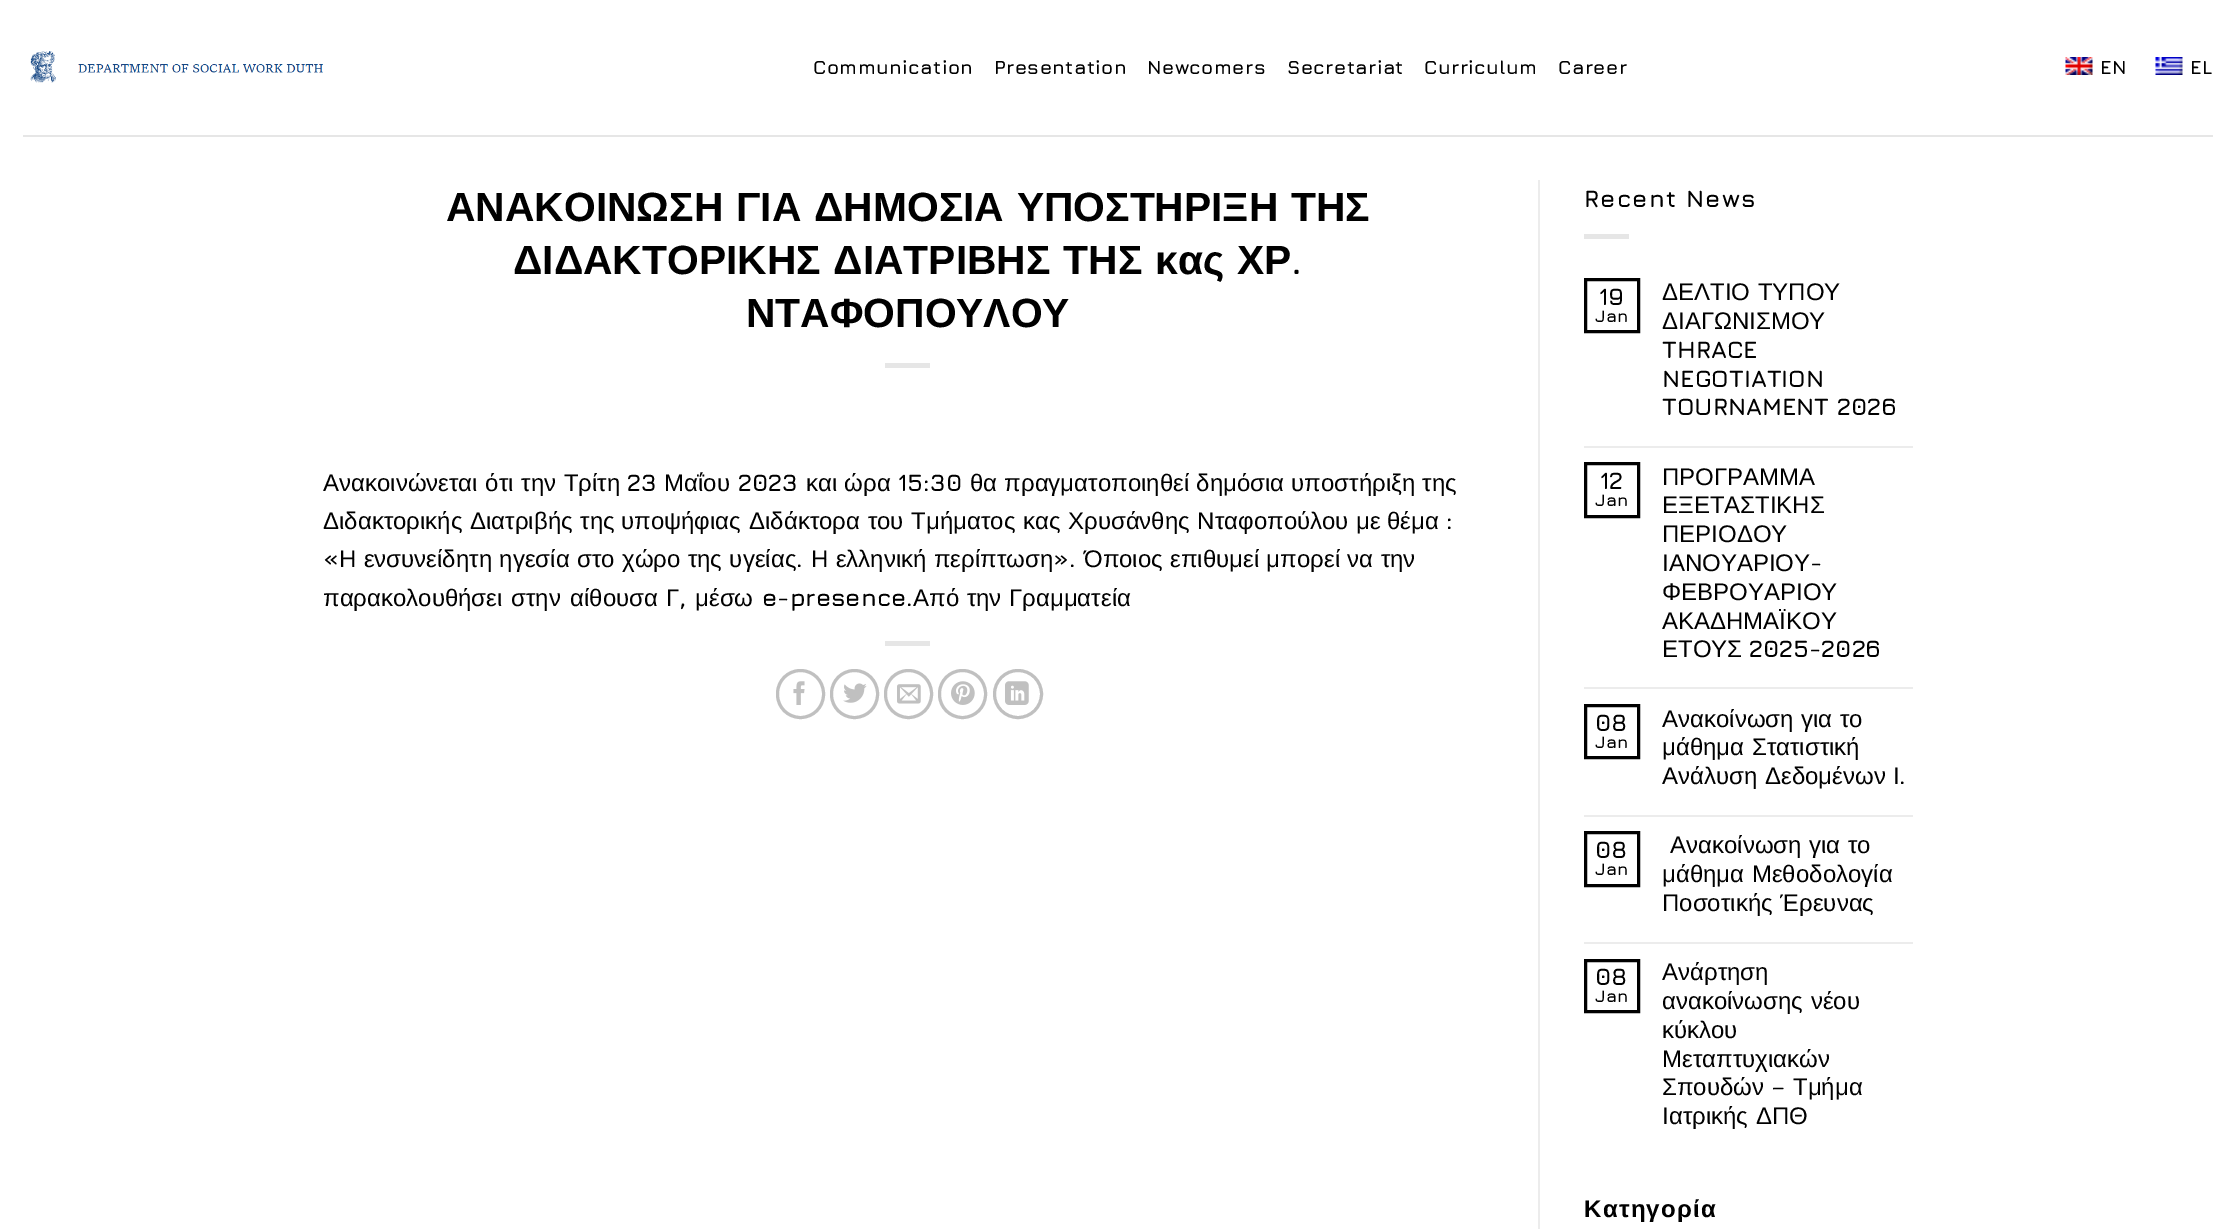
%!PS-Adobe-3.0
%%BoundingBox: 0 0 2235 1229
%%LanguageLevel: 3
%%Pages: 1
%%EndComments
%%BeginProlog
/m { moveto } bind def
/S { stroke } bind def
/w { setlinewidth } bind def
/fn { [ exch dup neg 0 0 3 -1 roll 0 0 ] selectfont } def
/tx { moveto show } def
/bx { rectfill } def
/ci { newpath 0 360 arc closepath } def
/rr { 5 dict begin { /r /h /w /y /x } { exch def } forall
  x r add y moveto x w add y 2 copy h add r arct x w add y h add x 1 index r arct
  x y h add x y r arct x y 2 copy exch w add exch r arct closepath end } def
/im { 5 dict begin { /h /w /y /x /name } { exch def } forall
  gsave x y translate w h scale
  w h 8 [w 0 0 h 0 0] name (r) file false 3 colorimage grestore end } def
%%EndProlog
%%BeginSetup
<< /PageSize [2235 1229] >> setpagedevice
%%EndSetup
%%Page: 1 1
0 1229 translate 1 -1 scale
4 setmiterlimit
1 setgray
0 0 2235 1229 bx
(image0.raw) 30 51 293 32 im
/Jura-Bold 19.25 fn
0 setgray
813 74 m 0.4 0 (Communication) ashow
994 74 m 0.4 0 (Presentation) ashow
1147 74 m 0.4 0 (Newcomers) ashow
1287 74 m 0.4 0 (Secretariat) ashow
1424 74 m 0.4 0 (Curriculum) ashow
1558 74 m 0.4 0 (Career) ashow
(image1.raw) 2065 57 28 18 im
2100 74 m 0.4 0 (EN) ashow
(image2.raw) 2155 57 28 18 im
2190 74 m 0.4 0 (EL) ashow
0.902 setgray
23 135 2190 2 bx
/LiberationSans-Bold 40.8 fn
0 setgray
446 221 m 1.5 0 32 (ΑΝΑΚΟΙΝΩΣΗ ΓΙΑ ΔΗΜΟΣΙΑ ΥΠΟΣΤΗΡΙΞΗ ΤΗΣ) widthshow
513 274 m 1.5 0 32 (ΔΙΔΑΚΤΟΡΙΚΗΣ ΔΙΑΤΡΙΒΗΣ ΤΗΣ κας ΧΡ) widthshow
/Jura-Bold 40.8 fn
(.) 1291 274 tx
/LiberationSans-Bold 40.8 fn
(ΝΤΑΦΟΠΟΥΛΟΥ) 746 327 tx
0.902 setgray
885 363 45 5 bx
/LiberationSans-Regular 24 fn
0 setgray
323 491 m 1 0 32 (Ανακοινώνεται ότι την Τρίτη) widthshow
/Jura-Bold 24 fn
(23) 627 491 tx
/LiberationSans-Regular 24 fn
(Μαΐου) 664 491 tx
/Jura-Bold 24 fn
(2023) 738 491 tx
/LiberationSans-Regular 24 fn
806 491 m 0.5 0 32 (και ώρα) widthshow
/Jura-Bold 24 fn
(15:30) 898 491 tx
/LiberationSans-Regular 24 fn
970 491 m 0.5 0 32 (θα πραγματοποιηθεί δημόσια υποστήριξη της) widthshow
323 529 m 1 0 32 (Διδακτορικής Διατριβής της) widthshow
(υποψήφιας) 621 529 tx
749 529 m 1 0 32 (Διδάκτορα του Τμήματος κας Χρυσάνθης Νταφοπούλου με) widthshow
(θέμα) 1387 529 tx
/Jura-Bold 24 fn
(:) 1446 529 tx
(«) 323 567 tx
/LiberationSans-Regular 24 fn
339 567 m 0.75 0 32 (Η ενσυνείδητη ηγεσία στο χώρο της υγείας) widthshow
/Jura-Bold 24 fn
(.) 796 567 tx
/LiberationSans-Regular 24 fn
811 567 m 0.75 0 32 (Η ελληνική περίπτωση) widthshow
/Jura-Bold 24 fn
(».) 1053 567 tx
/LiberationSans-Regular 24 fn
1084 567 m 0.75 0 32 (Όποιος επιθυμεί μπορεί να την) widthshow
(παρακολουθήσει) 323 606 tx
(στην) 511 606 tx
(αίθουσα) 570 606 tx
(Γ) 666 606 tx
/Jura-Bold 24 fn
(,) 680 606 tx
/LiberationSans-Regular 24 fn
(μέσω) 695 606 tx
/Jura-Bold 24 fn
(e-presence.) 762 606 tx
/LiberationSans-Regular 24 fn
913 606 m 1 0 32 (Από την Γραμματεία) widthshow
0.902 setgray
885 641 45 5 bx
0.753 setgray
3 w
777.5 670.5 46 47 23 rr S
(image3.raw) 793 681 12 24 im
831.5 670.5 46 47 23 rr S
(image4.raw) 843 683 24 20 im
885.5 670.5 46 47 23 rr S
(image5.raw) 897 684 24 20 im
939.5 670.5 46 47 23 rr S
(image6.raw) 951 681 24 24 im
1018 694 23.5 ci S
(image7.raw) 1005 681 24 24 im
0.925 setgray
1538 180 2 1049 bx
/Jura-Bold 24 fn
0 setgray
1584 207 m 1.25 0 (Recent News) ashow
0.902 setgray
1584 234 45 5 bx
0 setgray
1585.5 279.5 53 52 rectstroke
(19) 1599 305 tx
/Jura-Bold 17 fn
(Jan) 1595 322 tx
/LiberationSans-Regular 24 fn
1662 300 m 1 0 32 (ΔΕΛΤΙΟ ΤΥΠΟΥ) widthshow
(ΔΙΑΓΩΝΙΣΜΟΥ) 1662 329 tx
/Jura-Bold 24 fn
(THRACE) 1662 358 tx
(NEGOTIATION) 1662 387 tx
(TOURNAMENT 2026) 1662 415 tx
0.925 setgray
1584 446 329 2 bx
0 setgray
1585.5 463.5 53 53 rectstroke
(12) 1600 489 tx
/Jura-Bold 17 fn
(Jan) 1595 506 tx
/LiberationSans-Regular 24 fn
(ΠΡΟΓΡΑΜΜΑ) 1662 485 tx
(ΕΞΕΤΑΣΤΙΚΗΣ) 1662 513 tx
(ΠΕΡΙΟΔΟΥ) 1662 542 tx
(ΙΑΝΟΥΑΡΙΟΥ) 1662 571 tx
/Jura-Bold 24 fn
(-) 1810 571 tx
/LiberationSans-Regular 24 fn
(ΦΕΒΡΟΥΑΡΙΟΥ) 1662 600 tx
(ΑΚΑΔΗΜΑΪΚΟΥ) 1662 629 tx
(ΕΤΟΥΣ) 1662 657 tx
/Jura-Bold 24 fn
(2025-2026) 1749 657 tx
0.925 setgray
1584 687 329 2 bx
0 setgray
1585.5 705.5 53 52 rectstroke
(08) 1595 731 tx
/Jura-Bold 17 fn
(Jan) 1595 748 tx
/LiberationSans-Regular 24 fn
1662 727 m 1 0 32 (Ανακοίνωση για το) widthshow
1662 755 m 1 0 32 (μάθημα Στατιστική) widthshow
1662 784 m 1 0 32 (Ανάλυση Δεδομένων Ι) widthshow
/Jura-Bold 24 fn
(.) 1899 784 tx
0.925 setgray
1584 815 329 2 bx
0 setgray
1585.5 832.5 53 53 rectstroke
(08) 1595 858 tx
/Jura-Bold 17 fn
(Jan) 1595 875 tx
/LiberationSans-Regular 24 fn
1670 853 m 1 0 32 (Ανακοίνωση για το) widthshow
1662 882 m 1 0 32 (μάθημα Μεθοδολογία) widthshow
1662 911 m 1 0 32 (Ποσοτικής Έρευνας) widthshow
0.925 setgray
1584 942 329 2 bx
0 setgray
1585.5 960.5 53 51 rectstroke
/Jura-Bold 24 fn
(08) 1595 985 tx
/Jura-Bold 17 fn
(Jan) 1595 1002 tx
/LiberationSans-Regular 24 fn
(Ανάρτηση) 1662 980 tx
1662 1009 m 1 0 32 (ανακοίνωσης νέου) widthshow
(κύκλου) 1662 1038 tx
(Μεταπτυχιακών) 1662 1067 tx
(Σπουδών) 1662 1095 tx
/Jura-Bold 24 fn
(–) 1771 1095 tx
/LiberationSans-Regular 24 fn
(Τμήμα) 1793 1095 tx
1662 1124 m 1 0 32 (Ιατρικής ΔΠΘ) widthshow
/LiberationSans-Bold 24 fn
1584 1217 m 1.25 0 (Κατηγορία) ashow
showpage
%%EOF
